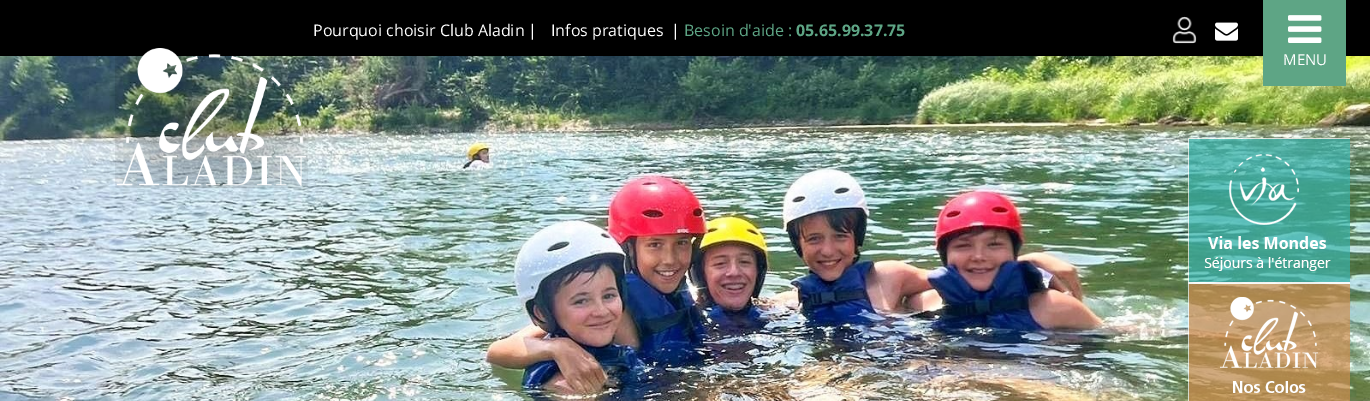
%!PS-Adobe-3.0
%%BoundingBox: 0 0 1370 401
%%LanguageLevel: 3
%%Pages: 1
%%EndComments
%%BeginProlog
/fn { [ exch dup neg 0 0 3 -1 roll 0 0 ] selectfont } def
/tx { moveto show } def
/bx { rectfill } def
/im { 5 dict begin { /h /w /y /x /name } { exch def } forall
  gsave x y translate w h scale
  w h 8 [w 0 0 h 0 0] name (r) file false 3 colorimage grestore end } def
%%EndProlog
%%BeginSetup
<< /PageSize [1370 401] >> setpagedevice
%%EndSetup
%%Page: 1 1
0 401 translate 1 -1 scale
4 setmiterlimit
1 setgray
0 0 1370 401 bx
(image0.raw) 0 56 1370 345 im
0 setgray
0 0 1370 56 bx
(image1.raw) 115 48 193 140 im
/OpenSans-Regular 16 fn
1 setgray
(Pourquoi choisir Club Aladin |) 313 36 tx
(Infos pratiques) 551 36 tx
(|) 671 36 tx
0.369 0.647 0.522 setrgbcolor
(Besoin d'aide :) 684 36 tx
/OpenSans-Bold 16 fn
(05.65.99.37.75) 796 36 tx
(image2.raw) 1172 16 25 28 im
(image3.raw) 1215 22 23 19 im
1263 0 83 86 bx
(image4.raw) 1288 15 34 28 im
/OpenSans-Regular 15 fn
1 setgray
(MENU) 1283 65 tx
(image5.raw) 1188 138 162 145 im
(image6.raw) 1188 283 162 118 im
showpage
%%EOF
